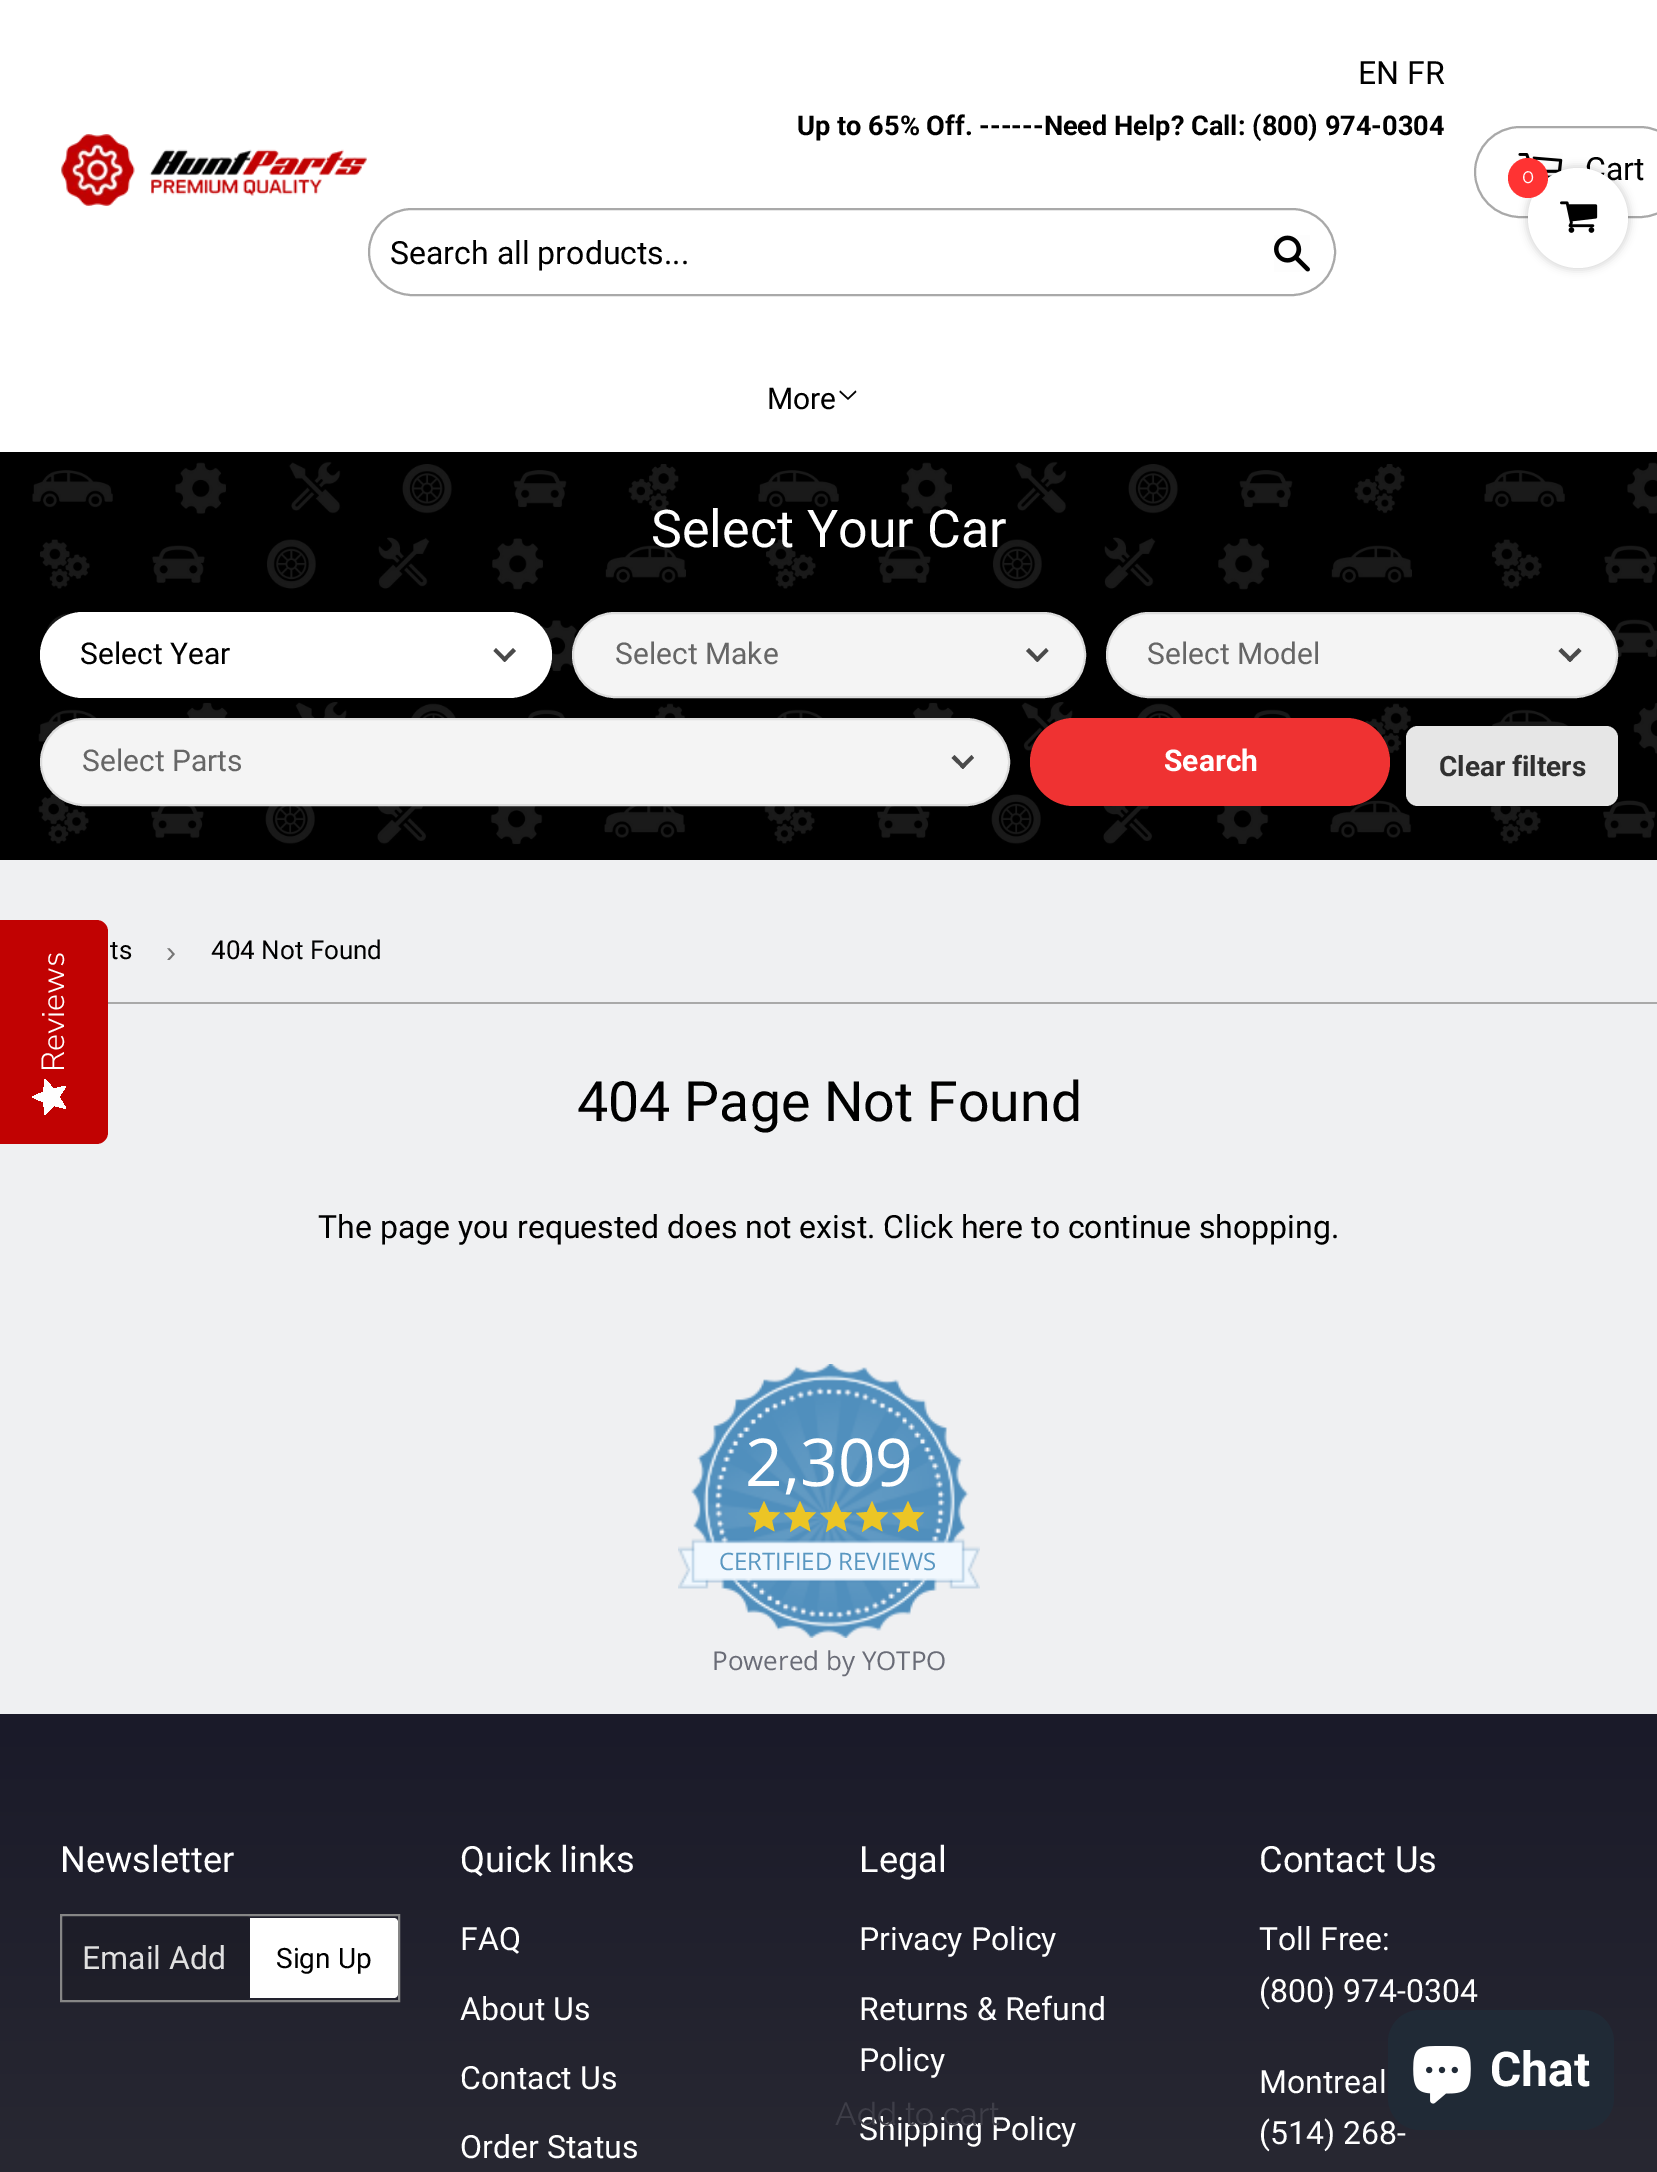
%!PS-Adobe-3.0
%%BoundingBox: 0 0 1657 2172
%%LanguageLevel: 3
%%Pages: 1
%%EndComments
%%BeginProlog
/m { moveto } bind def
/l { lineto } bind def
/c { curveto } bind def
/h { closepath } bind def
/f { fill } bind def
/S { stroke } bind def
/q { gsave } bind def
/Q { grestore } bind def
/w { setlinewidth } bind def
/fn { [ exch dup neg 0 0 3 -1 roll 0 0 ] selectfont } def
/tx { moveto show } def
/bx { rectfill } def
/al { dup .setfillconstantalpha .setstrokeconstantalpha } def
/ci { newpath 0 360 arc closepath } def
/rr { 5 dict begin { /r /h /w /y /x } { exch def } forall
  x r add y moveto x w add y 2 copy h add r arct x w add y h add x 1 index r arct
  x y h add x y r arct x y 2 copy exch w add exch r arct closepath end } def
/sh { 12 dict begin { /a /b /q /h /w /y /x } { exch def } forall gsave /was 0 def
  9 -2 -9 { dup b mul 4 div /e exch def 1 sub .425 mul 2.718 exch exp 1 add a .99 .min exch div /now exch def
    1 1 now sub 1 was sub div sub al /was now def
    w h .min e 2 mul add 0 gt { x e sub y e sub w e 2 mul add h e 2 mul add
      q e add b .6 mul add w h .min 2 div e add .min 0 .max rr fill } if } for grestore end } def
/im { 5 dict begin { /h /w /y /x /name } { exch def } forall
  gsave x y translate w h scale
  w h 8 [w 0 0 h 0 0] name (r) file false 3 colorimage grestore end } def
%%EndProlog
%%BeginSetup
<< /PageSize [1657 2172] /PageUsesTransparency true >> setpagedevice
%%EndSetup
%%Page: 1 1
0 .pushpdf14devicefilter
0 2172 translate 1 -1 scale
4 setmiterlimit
1 setgray
0 0 1657 2172 bx
(image0.raw) 61 134 306 72 im
/Roboto-Regular 32 fn
0 setgray
(EN FR) 1358 84 tx
/Roboto-Bold 27.2 fn
(Up to 65% Off. ------Need Help? Call: \(800\) 974-0304) 797 135 tx
0.663 setgray
2 w
369 209 966 86 43 rr S
/Roboto-Regular 32 fn
0 setgray
(Search all products...) 390 264 tx
(image1.raw) 1274 235 36 37 im
0.663 setgray
1475 127 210 90 45 rr S
(image2.raw) 1518 153 45 26 im
0 setgray
(Cart) 1585 180 tx
/Roboto-Regular 30 fn
(More) 767 409 tx
(image3.raw) 839 390 18 10 im
0.012 setgray
1526 166 104 104 52 4 0.15 sh
1 setgray
1578 218 50 ci f
1 0.2 0.2 setrgbcolor
1528 178 20 ci f
/Raleway-Thin 20 fn
1 setgray
(0) 1522 183 tx
(image4.raw) 1560 201 38 32 im
0.937 0.941 0.949 setrgbcolor
0 860 1657 854 bx
0.757 0.008 0.008 setrgbcolor
0 1144 m 0 920 l 96 920 l 103 920 108 925 108 932 c 108 1132 l 108 1139 103 1144 96 1144 c h f
/NunitoSans-Light 32 fn
1 setgray
q 64 1072 translate -90 rotate 0 0 m (Reviews) show Q
q 59 1097 m 66 1086 l 53.5 1089 l 45 1079 l 43.5 1092 l 32 1097 l 43.5 1102 l 45 1115 l 53.5 1105.5 l 66 1108.5 l h clip newpath
<< /ShadingType 2 /ColorSpace /DeviceRGB /Coords [32 1115 32 1079] /Extend [true true] /Function << /FunctionType 2 /Domain [0 1] /C0 [0.996 0.996 0.996] /C1 [0.996 0.996 0.996] /N 1 >> >> shfill Q
(image5.raw) 0 452 1657 408 im
/Roboto-Regular 52 fn
(Select Your Car) 651 547 tx
40 612 512 86 43 rr f
/Roboto-Regular 30 fn
0 setgray
(Select Year) 80 664 tx
0.29 setgray
513 648 m 516 651 l 504.5 662 l 502 659.5 l h f
496 648 m 507.5 659.5 l 504.5 662 l 493.5 651 l h f
0.957 setgray
573 613 512 84 42 rr q f Q
0.867 setgray
S
0.4 setgray
(Select Make) 615 664 tx
0.29 setgray
1046 648 m 1048.5 651 l 1037.5 662 l 1034.5 659.5 l h f
1029 648 m 1040 659.5 l 1037.5 662 l 1026 651 l h f
0.957 setgray
1107 613 510 84 42 rr q f Q
0.867 setgray
S
0.4 setgray
(Select Model) 1147 664 tx
0.29 setgray
1578.5 648 m 1581.5 651 l 1570 662 l 1567 659.5 l h f
1561.5 648 m 1573 659.5 l 1570 662 l 1558.5 651 l h f
0.957 setgray
41 719 968 86 43 rr q f Q
0.867 setgray
S
0.4 setgray
(Select Parts) 82 771 tx
0.29 setgray
971.5 755 m 974 758 l 963 769 l 960 766.5 l h f
954.5 755 m 965.5 766.5 l 963 769 l 951.5 758 l h f
0.937 0.196 0.196 setrgbcolor
1030 718 360 88 44 rr f
/Roboto-Bold 30 fn
1 setgray
(Search) 1164 771 tx
0.902 setgray
1406 726 212 80 12 rr f
/Roboto-Bold 28 fn
0.188 setgray
(Clear filters) 1439 776 tx
0.663 setgray
108 1002 1549 2 bx
/Roboto-Regular 26 fn
0 setgray
(ts) 110 959 tx
/LiberationSans-Regular 30 fn
0.463 setgray
(›) 166 962 tx
/Roboto-Regular 26 fn
0 setgray
(404 Not Found) 211 959 tx
/Roboto-Regular 55.5 fn
(404 Page Not Found) 577 1121 tx
/Roboto-Regular 32 fn
(The page you requested does not exist. Click here to continue shopping.) 318 1238 tx
(image6.raw) 678 1364 302 274 im
/OpenSans-Regular 66 fn
1 setgray
(2,309) 745 1486 tx
0.925 0.773 0.145 setrgbcolor
774.5 1531.5 m 764 1525.5 l 754 1532 l 756.5 1520.5 l 748 1513 l 759 1512 l 764 1501 l 769 1512 l 780 1512.5 l 772 1520.5 l h f
810.5 1531.5 m 800 1525.5 l 790 1532 l 792.5 1520.5 l 784 1513 l 795 1512 l 800 1501 l 805 1512 l 816 1512.5 l 808 1520.5 l h f
846.5 1531.5 m 836 1525.5 l 826 1532 l 828.5 1520.5 l 820 1513 l 831 1512 l 836 1501 l 841 1512 l 852 1512.5 l 844 1520.5 l h f
882.5 1531.5 m 872 1525.5 l 862 1532 l 864.5 1520.5 l 856 1513 l 867 1512 l 872 1501 l 877 1512 l 888 1512.5 l 880 1520.5 l h f
918.5 1531.5 m 908 1525.5 l 898 1532 l 900.5 1520.5 l 892 1513 l 903 1512 l 908 1501 l 913 1512 l 924 1512.5 l 916 1520.5 l h f
/OpenSans-Regular 24 fn
0.349 0.592 0.757 setrgbcolor
(CERTIFIED REVIEWS) 719 1570 tx
/OpenSans-Regular 26 fn
0.416 0.424 0.467 setrgbcolor
(Powered by YOTPO) 712 1670 tx
q 0 1714 m 1657 1714 l 1657 2172 l 0 2172 l h clip newpath
<< /ShadingType 2 /ColorSpace /DeviceRGB /Coords [829 1714 829 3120] /Extend [true true] /Function << /FunctionType 2 /Domain [0 1] /C0 [0.102 0.102 0.161] /C1 [0.271 0.271 0.271] /N 1 >> >> shfill Q
/Roboto-Regular 36.25 fn
1 setgray
(Newsletter) 60 1872 tx
0.525 setgray
61 1915 338 86 rectstroke
0.1 al
0 setgray
62 1916 188 84 4 rr f
/Roboto-Regular 32 fn
1 al
0.878 setgray
(Email Add) 82 1969 tx
1 setgray
250 1918 m 394 1918 l 396 1918 398 1920 398 1922 c 398 1994 l 398 1996 396 1998 394 1998 c 250 1998 l h f
/Roboto-Regular 28 fn
0 setgray
(Sign Up) 276 1968 tx
/Roboto-Regular 36.25 fn
1 setgray
(Quick links) 460 1872 tx
/Roboto-Regular 32 fn
(FAQ) 460 1950 tx
(About Us) 460 2020 tx
(Contact Us) 460 2089 tx
(Order Status) 460 2158 tx
/Roboto-Regular 36.25 fn
(Legal) 859 1872 tx
/Roboto-Regular 32 fn
(Privacy Policy) 859 1950 tx
(Returns & Refund) 859 2020 tx
(Policy) 859 2071 tx
(Shipping Policy) 859 2140 tx
/Roboto-Regular 36.25 fn
(Contact Us) 1259 1872 tx
/Roboto-Regular 32 fn
(Toll Free:) 1259 1950 tx
(\(800\) 974-0304) 1259 2002 tx
(Montreal) 1259 2093 tx
(\(514\) 268-) 1259 2144 tx
0.125 0.165 0.212 setrgbcolor
1388 2010 226 120 32 rr f
(image7.raw) 1413 2046 58 58 im
/Roboto-Bold 48 fn
1 setgray
(Chat) 1490 2086 tx
/Raleway-Thin 32 fn
0.243 0.243 0.282 setrgbcolor
(Add to cart) 835 2125 tx
.poppdf14devicefilter showpage
%%EOF
